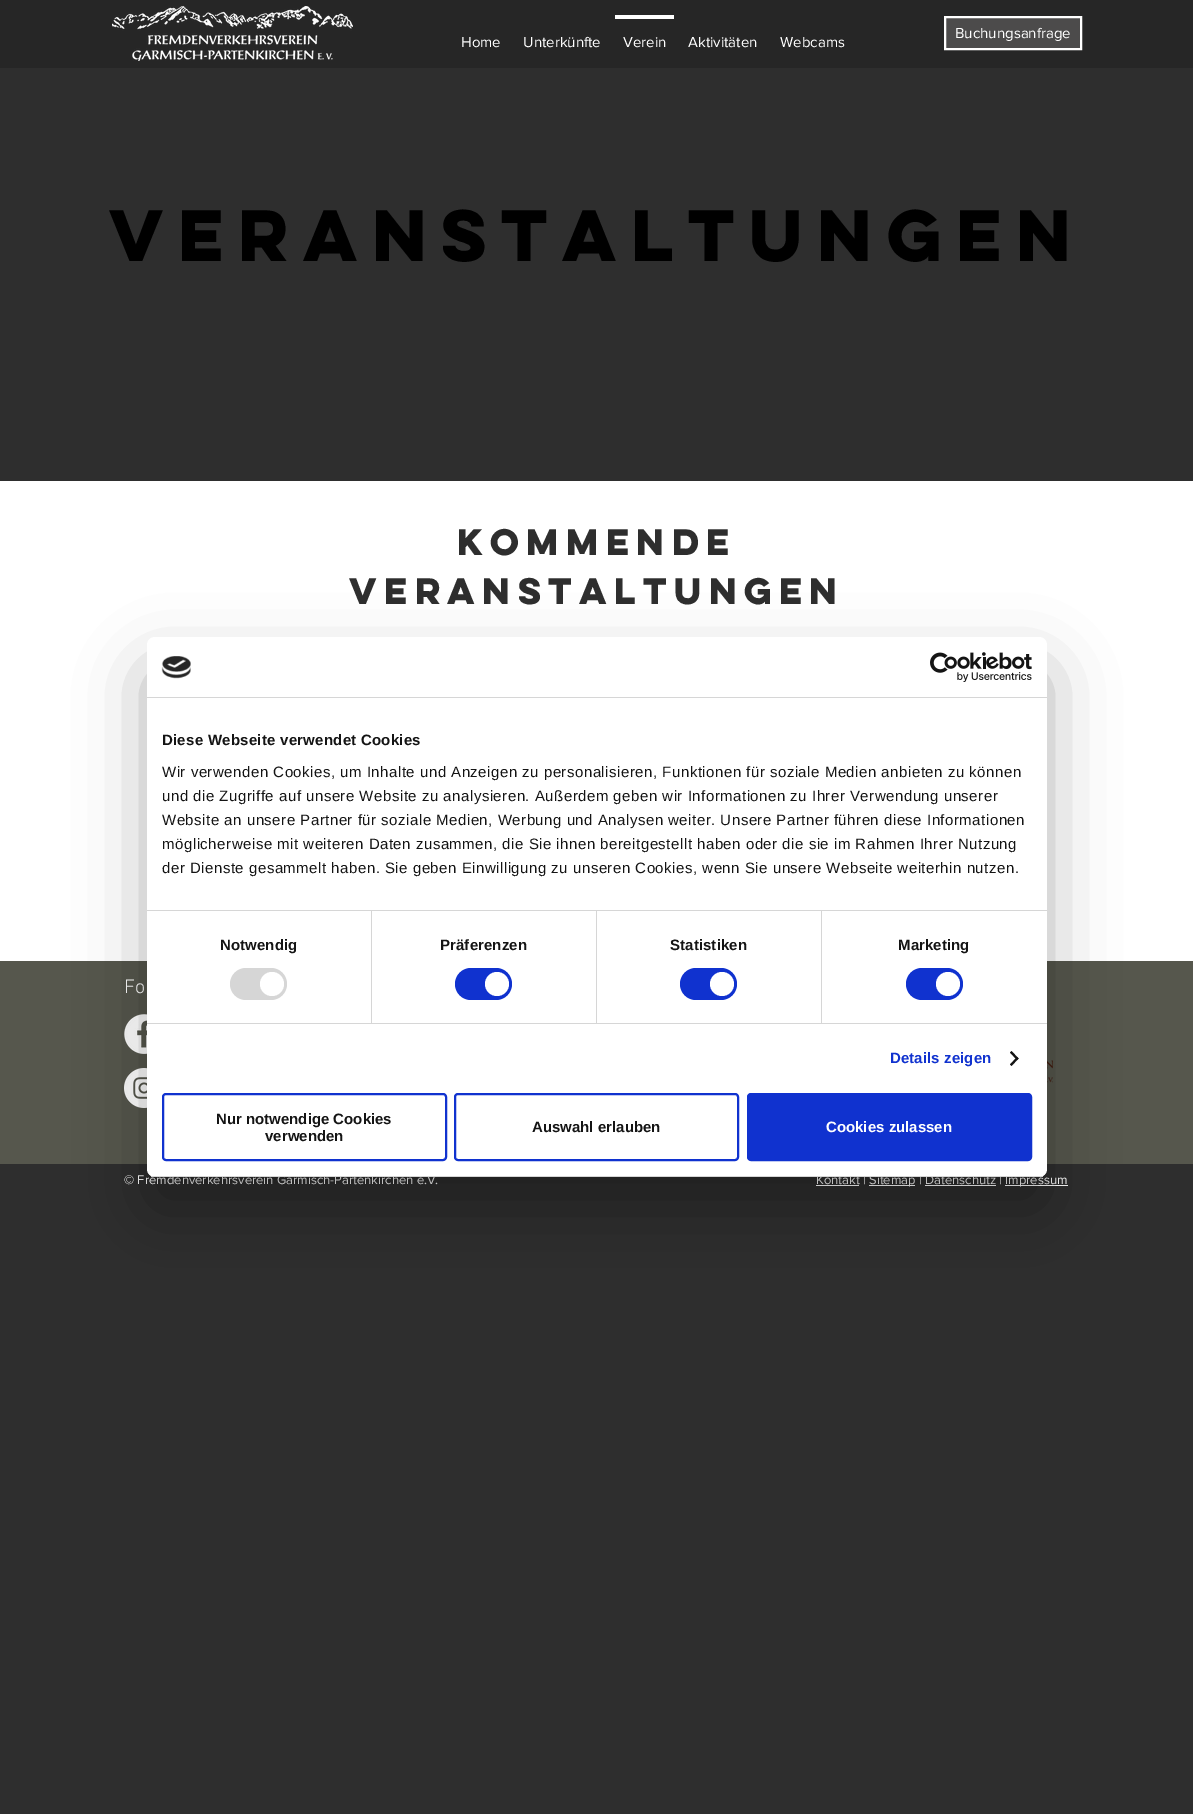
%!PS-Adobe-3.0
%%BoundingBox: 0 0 1193 1814
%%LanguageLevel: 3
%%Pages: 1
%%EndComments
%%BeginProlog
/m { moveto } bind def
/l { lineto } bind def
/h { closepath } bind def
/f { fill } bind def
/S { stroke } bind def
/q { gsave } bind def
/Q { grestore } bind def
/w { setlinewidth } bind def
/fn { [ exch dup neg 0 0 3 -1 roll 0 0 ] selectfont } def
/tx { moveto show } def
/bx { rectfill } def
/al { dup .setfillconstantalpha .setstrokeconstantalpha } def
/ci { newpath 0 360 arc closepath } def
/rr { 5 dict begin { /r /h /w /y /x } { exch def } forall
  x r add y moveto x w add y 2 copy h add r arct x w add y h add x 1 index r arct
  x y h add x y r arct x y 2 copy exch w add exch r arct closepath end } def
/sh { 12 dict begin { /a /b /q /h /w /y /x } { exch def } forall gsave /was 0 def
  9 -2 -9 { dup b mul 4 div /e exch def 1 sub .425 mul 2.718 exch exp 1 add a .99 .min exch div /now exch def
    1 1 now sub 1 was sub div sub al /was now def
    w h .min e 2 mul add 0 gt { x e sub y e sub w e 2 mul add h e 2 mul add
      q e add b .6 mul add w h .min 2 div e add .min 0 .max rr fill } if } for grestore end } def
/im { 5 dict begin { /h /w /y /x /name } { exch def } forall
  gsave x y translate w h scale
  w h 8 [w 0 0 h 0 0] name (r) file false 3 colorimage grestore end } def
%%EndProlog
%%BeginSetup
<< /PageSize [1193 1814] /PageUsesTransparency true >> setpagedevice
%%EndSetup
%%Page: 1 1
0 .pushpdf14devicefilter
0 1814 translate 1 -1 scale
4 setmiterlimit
0.18 setgray
0 0 1193 1814 bx
0.149 setgray
0 0 1193 68 bx
(image0.raw) 112 6 241 55 im
/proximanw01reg-Regular 15 fn
1 setgray
(Home) 461 47 tx
(Unterkünfte) 523 47 tx
615 15 59 4 bx
(Verein) 623 47 tx
(Aktivitäten) 688 47 tx
(Webcams) 780 47 tx
0.298 0.294 0.294 setrgbcolor
945 17 m 1081 17 l 1081 49 l 945 49 l h q f Q
1 setgray
2 w
S
(Buchungsanfrage) 955 38 tx
/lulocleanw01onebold-Bold 65 fn
0 setgray
(Veranstaltungen) 109 261 tx
1 setgray
0 481 1193 480 bx
/lulocleanw01onebold-Bold 33 fn
0.18 setgray
(Kommende) 457 555 tx
(Veranstaltungen) 349 604 tx
0.337 0.341 0.302 setrgbcolor
0 961 1193 203 bx
/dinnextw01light-Light 20 fn
1 setgray
(Fo) 124 993 tx
(image1.raw) 124 1014 23 40 im
(image2.raw) 124 1068 23 40 im
(image3.raw) 1047 1060 6 23 im
/proximanw01reg-Regular 13 fn
(© Fremdenverkehrsverein Garmisch-Partenkirchen e.V.) 124 1184 tx
(Kontakt |) 816 1184 tx
816 1185 43 1 bx
869 1185 46 1 bx
(Sitemap | Datenschutz |) 869 1184 tx
925 1185 71 1 bx
1005 1185 63 1 bx
(Impressum) 1005 1184 tx
0 setgray
147 669 900 540 8 34 0.3 sh
1 setgray
147 637 900 540 8 rr f
0.839 setgray
147 697 900 1 bx
(image4.raw) 161 656 30 23 im
(image5.raw) 930 652 102 30 im
147 910 900 1 bx
/LiberationSans-Bold 15 fn
0.078 setgray
162 745 m 0.25 0 (Diese Webseite verwendet Cookies) ashow
/LiberationSans-Regular 15 fn
162 777 m 0.5 0 (Wir verwenden Cookies, um Inhalte und Anzeigen zu personalisieren, Funktionen für soziale Medien anbieten zu können) ashow
162 801 m 0.5 0 (und die Zugriffe auf unsere Website zu analysieren. Außerdem geben wir Informationen zu Ihrer Verwendung unserer) ashow
162 825 m 0.5 0 (Website an unsere Partner für soziale Medien, Werbung und Analysen weiter. Unsere Partner führen diese Informationen) ashow
162 849 m 0.5 0 (möglicherweise mit weiteren Daten zusammen, die Sie ihnen bereitgestellt haben oder die sie im Rahmen Ihrer Nutzung) ashow
162 873 m 0.5 0 (der Dienste gesammelt haben. Sie geben Einwilligung zu unseren Cookies, wenn Sie unsere Webseite weiterhin nutzen.) ashow
0.839 setgray
147 1023 900 1 bx
371 911 1 112 bx
/LiberationSans-Bold 15 fn
0.078 setgray
220 950 m 0.1 0 (Notwendig) ashow
0.839 setgray
230 968 57 32 16 rr f
1 setgray
272 984 12 ci f
0.839 setgray
596 911 1 112 bx
0.078 setgray
440 950 m 0.1 0 (Präferenzen) ashow
0.063 0.196 0.812 setrgbcolor
455 968 57 32 16 rr f
1 setgray
497 984 12 ci f
0.839 setgray
821 911 1 112 bx
0.078 setgray
670 950 m 0.1 0 (Statistiken) ashow
0.063 0.196 0.812 setrgbcolor
680 968 57 32 16 rr f
1 setgray
722 984 12 ci f
0.078 setgray
898 950 m 0.1 0 (Marketing) ashow
0.063 0.196 0.812 setrgbcolor
906 968 57 32 16 rr f
1 setgray
948 984 12 ci f
0.063 0.196 0.812 setrgbcolor
890 1063 m 0.1 0 (Details zeigen) ashow
0.078 setgray
1011.5 1051 m 1018.5 1058.5 l 1017 1060 l 1010 1052.5 l h f
1017 1057 m 1018.5 1058.5 l 1011.5 1066 l 1010 1064.5 l h f
q
147 637 900 540 8 rr clip newpath
0.839 setgray
147 1176 900 1 bx
Q
0.063 0.196 0.812 setrgbcolor
163 1094 283 66 3 rr S
0.078 setgray
(Nur notwendige Cookies) 216 1124 tx
(verwenden) 265 1141 tx
0.063 0.196 0.812 setrgbcolor
455 1094 283 66 3 rr S
0.078 setgray
(Auswahl erlauben) 532 1132 tx
0.063 0.196 0.812 setrgbcolor
748 1094 283 66 3 rr q f Q
S
1 setgray
(Cookies zulassen) 826 1132 tx
.poppdf14devicefilter showpage
%%EOF
